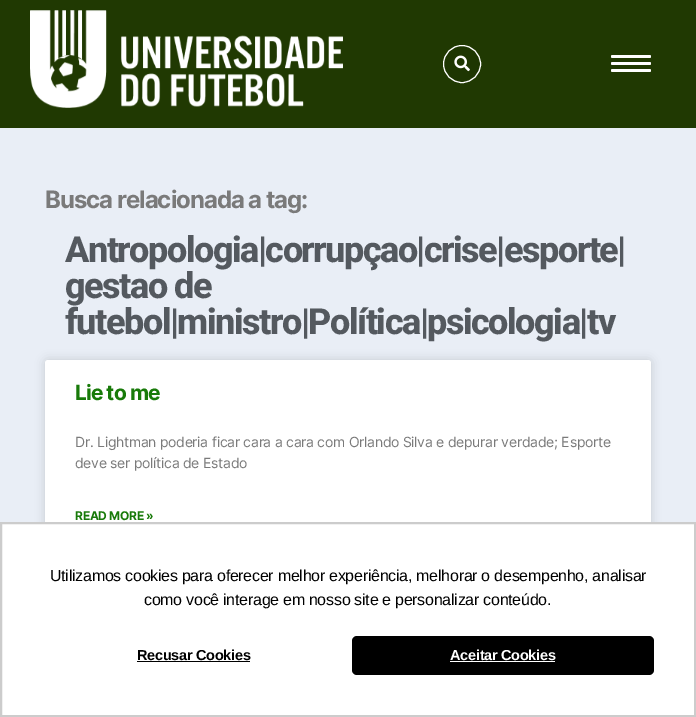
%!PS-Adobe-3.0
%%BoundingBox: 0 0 696 717
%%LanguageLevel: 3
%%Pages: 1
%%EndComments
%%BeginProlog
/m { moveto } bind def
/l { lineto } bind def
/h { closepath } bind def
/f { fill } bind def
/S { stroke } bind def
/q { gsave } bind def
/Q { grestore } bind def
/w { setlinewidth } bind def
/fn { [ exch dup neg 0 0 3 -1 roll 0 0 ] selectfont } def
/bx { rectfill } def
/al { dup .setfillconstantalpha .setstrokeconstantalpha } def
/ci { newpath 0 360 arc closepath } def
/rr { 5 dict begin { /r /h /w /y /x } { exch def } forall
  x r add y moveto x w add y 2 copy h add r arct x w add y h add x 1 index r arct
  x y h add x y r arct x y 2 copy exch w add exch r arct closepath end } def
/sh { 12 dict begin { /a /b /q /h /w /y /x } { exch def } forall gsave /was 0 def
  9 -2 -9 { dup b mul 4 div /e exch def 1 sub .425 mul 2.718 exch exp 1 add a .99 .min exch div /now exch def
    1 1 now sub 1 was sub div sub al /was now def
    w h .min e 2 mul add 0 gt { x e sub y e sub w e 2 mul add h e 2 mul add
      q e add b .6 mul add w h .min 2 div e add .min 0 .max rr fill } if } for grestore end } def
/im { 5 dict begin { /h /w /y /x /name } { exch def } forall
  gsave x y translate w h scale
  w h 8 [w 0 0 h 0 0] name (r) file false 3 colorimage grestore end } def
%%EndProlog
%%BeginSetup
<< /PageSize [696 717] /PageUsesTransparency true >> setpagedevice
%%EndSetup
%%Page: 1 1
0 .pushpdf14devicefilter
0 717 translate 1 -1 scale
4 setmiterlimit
0.914 0.933 0.965 setrgbcolor
0 0 696 717 bx
0.125 0.224 0.008 setrgbcolor
0 0 696 128 bx
(image0.raw) 30 10 313 98 im
0.118 0.212 0.008 setrgbcolor
462 64 18.5 ci q f Q
1 setgray
S
(image1.raw) 454 55 16 17 im
611 55 40 3 1.5 rr f
611 62 40 3 1.5 rr f
611 69 40 3 1.5 rr f
/Inter-Bold 24 fn
0.478 setgray
45 208 m -1 0 (Busca relacionada a tag:) ashow
/Roboto-ExtraBold 36 fn
0.329 0.349 0.373 setrgbcolor
65 262 m -1.5 0 (Antropologia|corrupçao|crise|esporte|) ashow
65 298 m -1.5 0 (gestao de) ashow
65 334 m -1.5 0 (futebol|ministro|Política|psicologia|tv) ashow
0 setgray
45 360 606 229 3 5 0.15 sh
1 setgray
45 360 606 229 3 rr f
/Inter-Bold 21 fn
0.094 0.478 0.035 setrgbcolor
75 400 m -0.9 0 (Lie to me) ashow
/Inter-Regular 14 fn
0.478 setgray
75 447 m -0.27 0 (Dr. Lightman poderia ficar cara a cara com Orlando Silva e depurar verdade; Esporte) ashow
75 468 m -0.27 0 (deve ser política de Estado) ashow
/Inter-Bold 12 fn
0.094 0.478 0.035 setrgbcolor
75 520 m -0.27 0 (READ MORE ») ashow
1 setgray
1 523 m 695 523 l 695 716 l 1 716 l h q f Q
0.8 setgray
2 w
S
/LiberationSans-Regular 16 fn
0 setgray
50 581 m -0.27 0 (Utilizamos cookies para oferecer melhor experiência, melhorar o desempenho, analisar) ashow
144 605 m -0.27 0 (como você interage em nosso site e personalizar conteúdo.) ashow
/LiberationSans-Bold 14.5 fn
137 660 m -0.27 0 (Recusar Cookies) ashow
137 661 113 1 bx
352 636 302 39 5 rr f
1 setgray
450 660 m -0.27 0 (Aceitar Cookies) ashow
450 661 105 1 bx
.poppdf14devicefilter showpage
%%EOF
